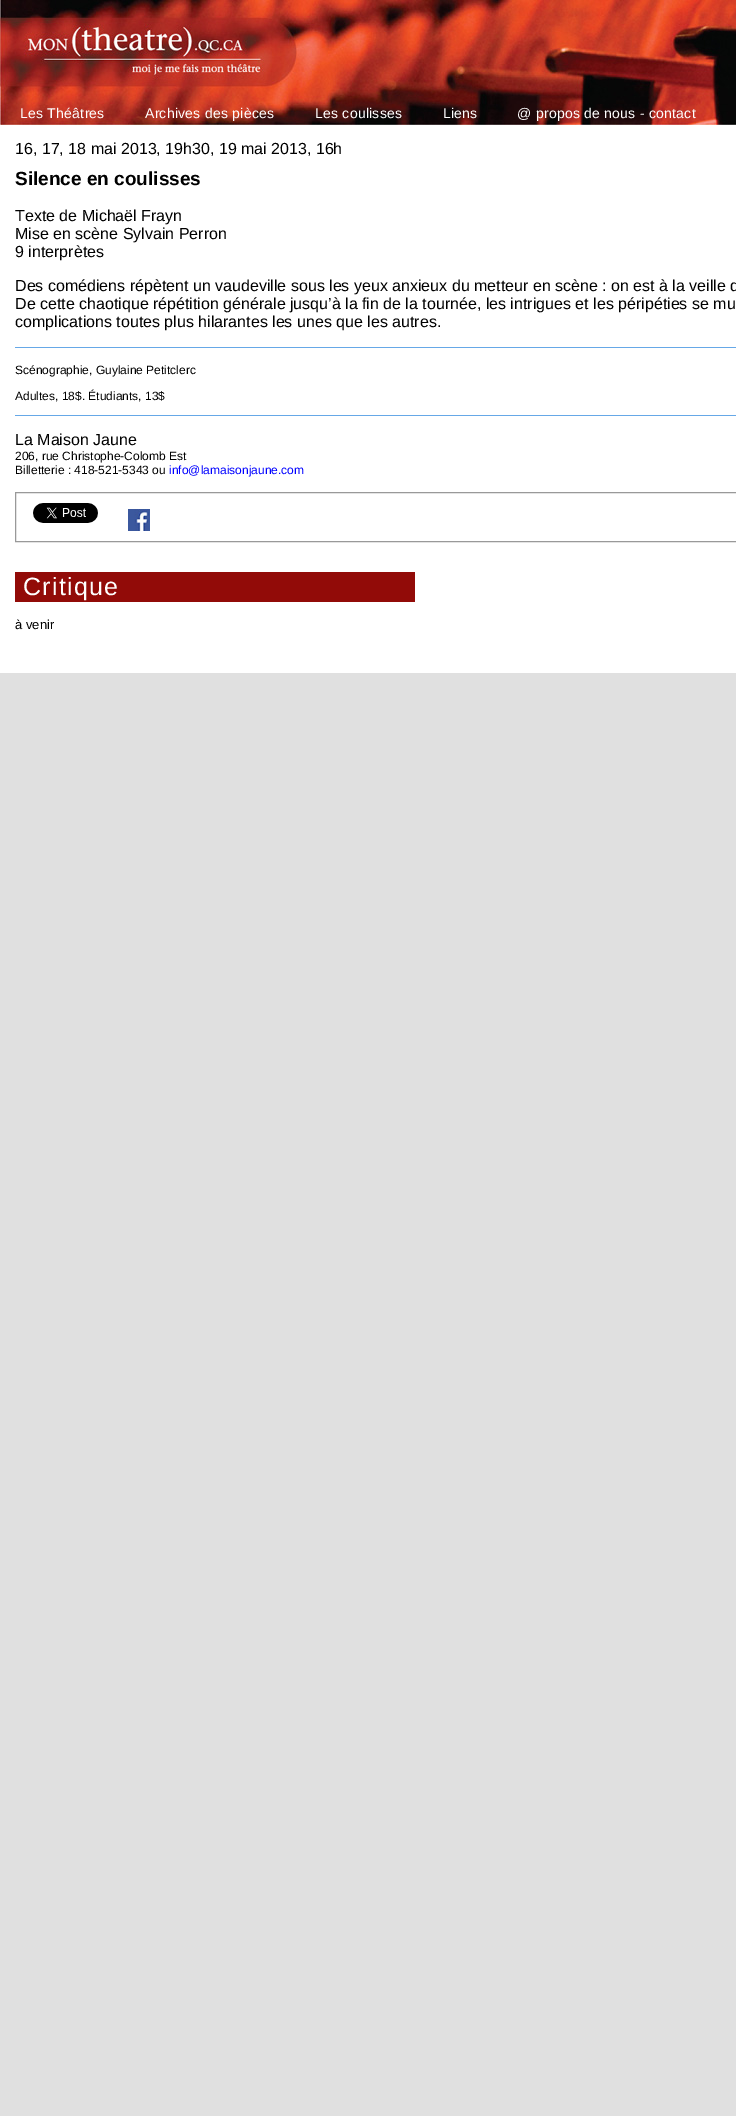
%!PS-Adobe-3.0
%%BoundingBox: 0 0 736 2116
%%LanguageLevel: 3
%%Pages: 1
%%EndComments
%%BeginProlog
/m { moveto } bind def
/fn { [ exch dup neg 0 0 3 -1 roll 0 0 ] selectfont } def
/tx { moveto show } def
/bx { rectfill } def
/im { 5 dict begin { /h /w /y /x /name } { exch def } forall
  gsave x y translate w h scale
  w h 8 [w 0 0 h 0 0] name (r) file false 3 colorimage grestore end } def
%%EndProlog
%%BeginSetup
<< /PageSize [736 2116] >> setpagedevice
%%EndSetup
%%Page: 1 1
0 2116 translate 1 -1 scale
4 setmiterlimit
0.878 setgray
0 0 736 2116 bx
1 setgray
0 125 736 548 bx
(image0.raw) 0 0 736 125 im
/LiberationSans-Regular 14 fn
20 118 m 0.25 0 (Les Théâtres) ashow
145 118 m 0.25 0 (Archives des pièces) ashow
315 118 m 0.25 0 (Les coulisses) ashow
443 118 m 0.25 0 (Liens) ashow
517 118 m 0.25 0 (@ propos de nous - contact) ashow
/LiberationSans-Regular 16 fn
0 setgray
(16, 17, 18 mai 2013, 19h30, 19 mai 2013, 16h) 15 154 tx
/LiberationSans-Bold 19 fn
(Silence en coulisses) 15 185 tx
/LiberationSans-Regular 16 fn
(Texte de Michaël Frayn) 15 221 tx
(Mise en scène Sylvain Perron) 15 239 tx
(9 interprètes) 15 257 tx
(Des comédiens répètent un vaudeville sous les yeux anxieux du metteur en scène : on est à la veille d) 15 291 tx
(De cette chaotique répétition générale jusqu’à la fin de la tournée, les intrigues et les péripéties se mu) 15 309 tx
(complications toutes plus hilarantes les unes que les autres.) 15 327 tx
0.4 0.659 0.906 setrgbcolor
15 347 721 1 bx
/LiberationSans-Regular 12 fn
0 setgray
(Scénographie, Guylaine Petitclerc) 15 374 tx
(Adultes, 18$. Étudiants, 13$) 15 400 tx
0.4 0.659 0.906 setrgbcolor
15 415 721 1 bx
/LiberationSans-Regular 16 fn
0 setgray
(La Maison Jaune) 15 445 tx
/LiberationSans-Regular 12 fn
(206, rue Christophe-Colomb Est) 15 460 tx
(Billetterie : 418-521-5343 ou) 15 474 tx
0 0 1 setrgbcolor
(info@lamaisonjaune.com) 169 474 tx
0.6 setgray
15.5 492.5 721 49 rectstroke
(image1.raw) 33 503 65 20 im
(image2.raw) 128 509 22 22 im
0.573 0.043 0.031 setrgbcolor
15 572 400 30 bx
/LiberationSans-Regular 25 fn
1 setgray
23 595 m 1.25 0 (Critique) ashow
/LiberationSans-Regular 13 fn
0 setgray
(à venir) 15 629 tx
showpage
%%EOF
